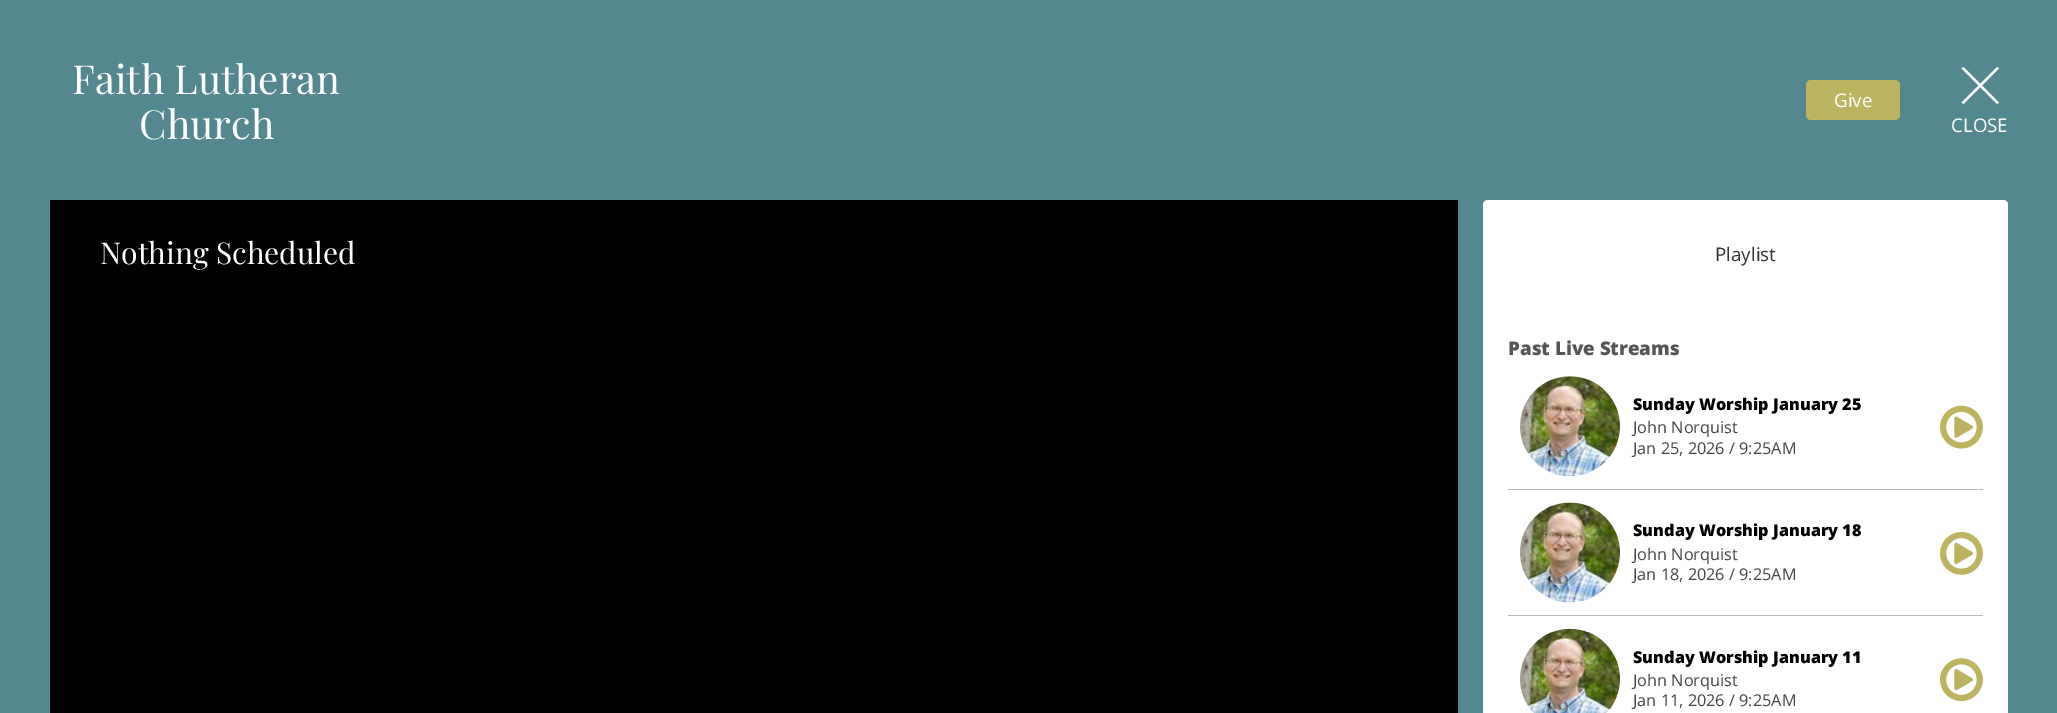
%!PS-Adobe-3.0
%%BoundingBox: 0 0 2057 713
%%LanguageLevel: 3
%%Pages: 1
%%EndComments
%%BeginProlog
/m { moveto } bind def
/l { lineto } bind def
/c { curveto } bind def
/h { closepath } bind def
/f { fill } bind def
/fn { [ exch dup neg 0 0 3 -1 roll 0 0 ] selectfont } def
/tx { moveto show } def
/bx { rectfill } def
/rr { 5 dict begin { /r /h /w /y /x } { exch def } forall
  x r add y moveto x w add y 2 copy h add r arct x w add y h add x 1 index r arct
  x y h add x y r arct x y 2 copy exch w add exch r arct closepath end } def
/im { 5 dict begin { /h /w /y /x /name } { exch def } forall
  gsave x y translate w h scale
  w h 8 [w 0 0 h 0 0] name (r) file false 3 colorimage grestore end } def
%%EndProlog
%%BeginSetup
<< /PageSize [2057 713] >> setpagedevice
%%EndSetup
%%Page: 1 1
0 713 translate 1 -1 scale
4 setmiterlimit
0.329 0.533 0.565 setrgbcolor
0 0 2057 713 bx
/PlayfairDisplay-Regular 40 fn
1 setgray
(Faith Lutheran) 72 94 tx
(Church) 139 139 tx
0.741 0.706 0.384 setrgbcolor
1806 80 94 40 5 rr f
/OpenSans-Regular 18.75 fn
1 setgray
(Give) 1834 107 tx
1997 67 m 1999 68.5 l 1963.5 104 l 1961.5 102.5 l h f
1961.5 68.5 m 1963.5 67 l 1999 102.5 l 1997 104 l h f
(CLOSE) 1951 132 tx
0 setgray
50 200 1408 513 bx
/PlayfairDisplay-Regular 30 fn
1 setgray
(Nothing Scheduled) 100 264 tx
1488 200 m 2003 200 l 2006 200 2008 202 2008 205 c 2008 309 l 1483 309 l 1483 205 l 1483 202 1485 200 1488 200 c h f
/OpenSans-Regular 18.75 fn
0.2 setgray
(Playlist) 1715 261 tx
1 setgray
1483 309 525 404 bx
/OpenSans-ExtraBold 18.75 fn
0.333 setgray
(Past Live Streams) 1508 355 tx
(image0.raw) 1520 376 100 100 im
/OpenSans-ExtraBold 16.25 fn
0 setgray
(Sunday Worship January 25) 1633 410 tx
/OpenSans-Regular 16.25 fn
0.267 setgray
(John Norquist) 1633 433 tx
(Jan 25, 2026 / 9:25AM) 1633 454 tx
(image1.raw) 1940 405 43 44 im
0.733 setgray
1508 489 475 1 bx
(image2.raw) 1520 502 100 101 im
/OpenSans-ExtraBold 16.25 fn
0 setgray
(Sunday Worship January 18) 1633 536 tx
/OpenSans-Regular 16.25 fn
0.267 setgray
(John Norquist) 1633 560 tx
(Jan 18, 2026 / 9:25AM) 1633 580 tx
(image3.raw) 1940 532 43 43 im
0.733 setgray
1508 615 475 1 bx
(image4.raw) 1520 628 100 85 im
/OpenSans-ExtraBold 16.25 fn
0 setgray
(Sunday Worship January 11) 1633 663 tx
/OpenSans-Regular 16.25 fn
0.267 setgray
(John Norquist) 1633 686 tx
(Jan 11, 2026 / 9:25AM) 1633 706 tx
(image5.raw) 1940 658 43 44 im
showpage
%%EOF
